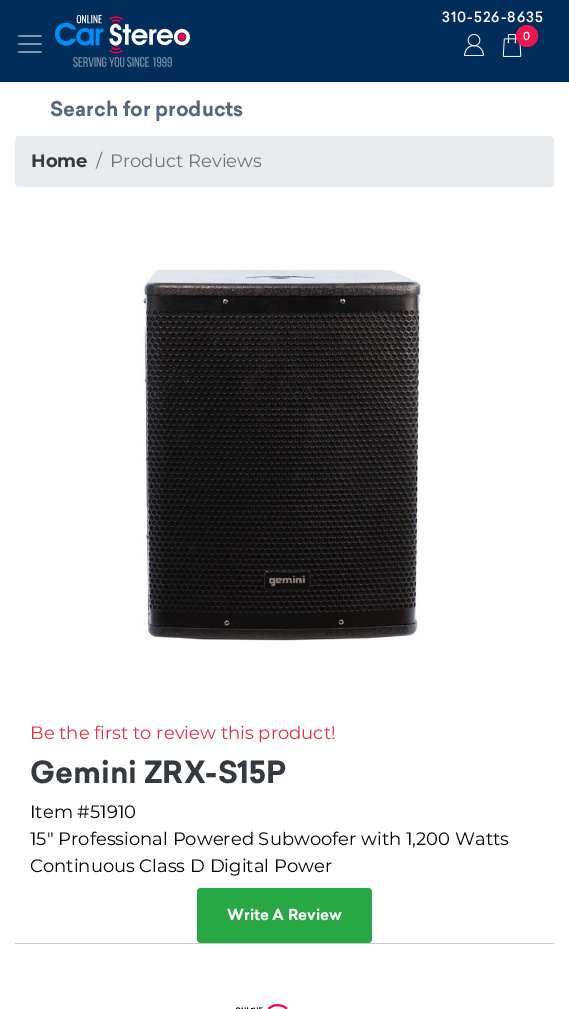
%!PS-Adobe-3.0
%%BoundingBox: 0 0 569 1009
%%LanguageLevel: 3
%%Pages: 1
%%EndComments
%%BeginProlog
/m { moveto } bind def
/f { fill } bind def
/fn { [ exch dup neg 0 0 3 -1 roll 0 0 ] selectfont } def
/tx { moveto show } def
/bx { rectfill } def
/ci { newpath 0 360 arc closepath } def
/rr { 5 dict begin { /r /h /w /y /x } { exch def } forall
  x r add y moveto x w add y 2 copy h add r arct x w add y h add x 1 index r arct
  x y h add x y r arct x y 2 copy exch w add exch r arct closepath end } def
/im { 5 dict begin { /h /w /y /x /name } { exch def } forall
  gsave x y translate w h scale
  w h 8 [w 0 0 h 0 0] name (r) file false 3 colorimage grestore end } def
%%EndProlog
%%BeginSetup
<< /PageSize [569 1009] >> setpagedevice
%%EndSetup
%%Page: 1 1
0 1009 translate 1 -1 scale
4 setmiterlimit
1 setgray
0 0 569 1009 bx
0 0.176 0.349 setrgbcolor
0 0 569 82 bx
(image0.raw) 55 15 135 52 im
/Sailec-Medium 14 fn
0.973 0.976 0.98 setrgbcolor
442 22 m 1 0 (310-526-8635) ashow
(image1.raw) 464 34 20 22 im
(image2.raw) 502 34 20 23 im
0.929 0.09 0.306 setrgbcolor
527 36 11 ci f
/Sailec-Medium 11 fn
1 setgray
523 40 m 1 0 (0) ashow
(image3.raw) 18 35 24 18 im
/Sailec-Bold 20 fn
0.337 0.408 0.475 setrgbcolor
(Search for products) 50 116 tx
0.914 0.925 0.937 setrgbcolor
15 136 539 51 4 rr f
/Montserrat-Bold 18 fn
0.204 0.227 0.251 setrgbcolor
(Home) 31 167 tx
/Montserrat-Regular 18 fn
0.424 0.459 0.49 setrgbcolor
(/) 96 167 tx
(Product Reviews) 110 167 tx
(image4.raw) 141 267 282 374 im
0.863 0.208 0.271 setrgbcolor
(Be the first to review this product!) 30 739 tx
/Sailec-Bold 30 fn
0.204 0.227 0.251 setrgbcolor
(Gemini ZRX-S15P) 30 783 tx
/Montserrat-Regular 18 fn
0.024 setgray
(Item #51910) 30 818 tx
(15" Professional Powered Subwoofer with 1,200 Watts) 30 845 tx
(Continuous Class D Digital Power) 30 872 tx
0.157 0.655 0.271 setrgbcolor
197 888 175 55 4 rr f
/Sailec-Bold 15 fn
1 setgray
(Write A Review) 227 920 tx
0.776 0.792 0.804 setrgbcolor
15 943 539 1 bx
(image5.raw) 235 1004 53 5 im
showpage
%%EOF
